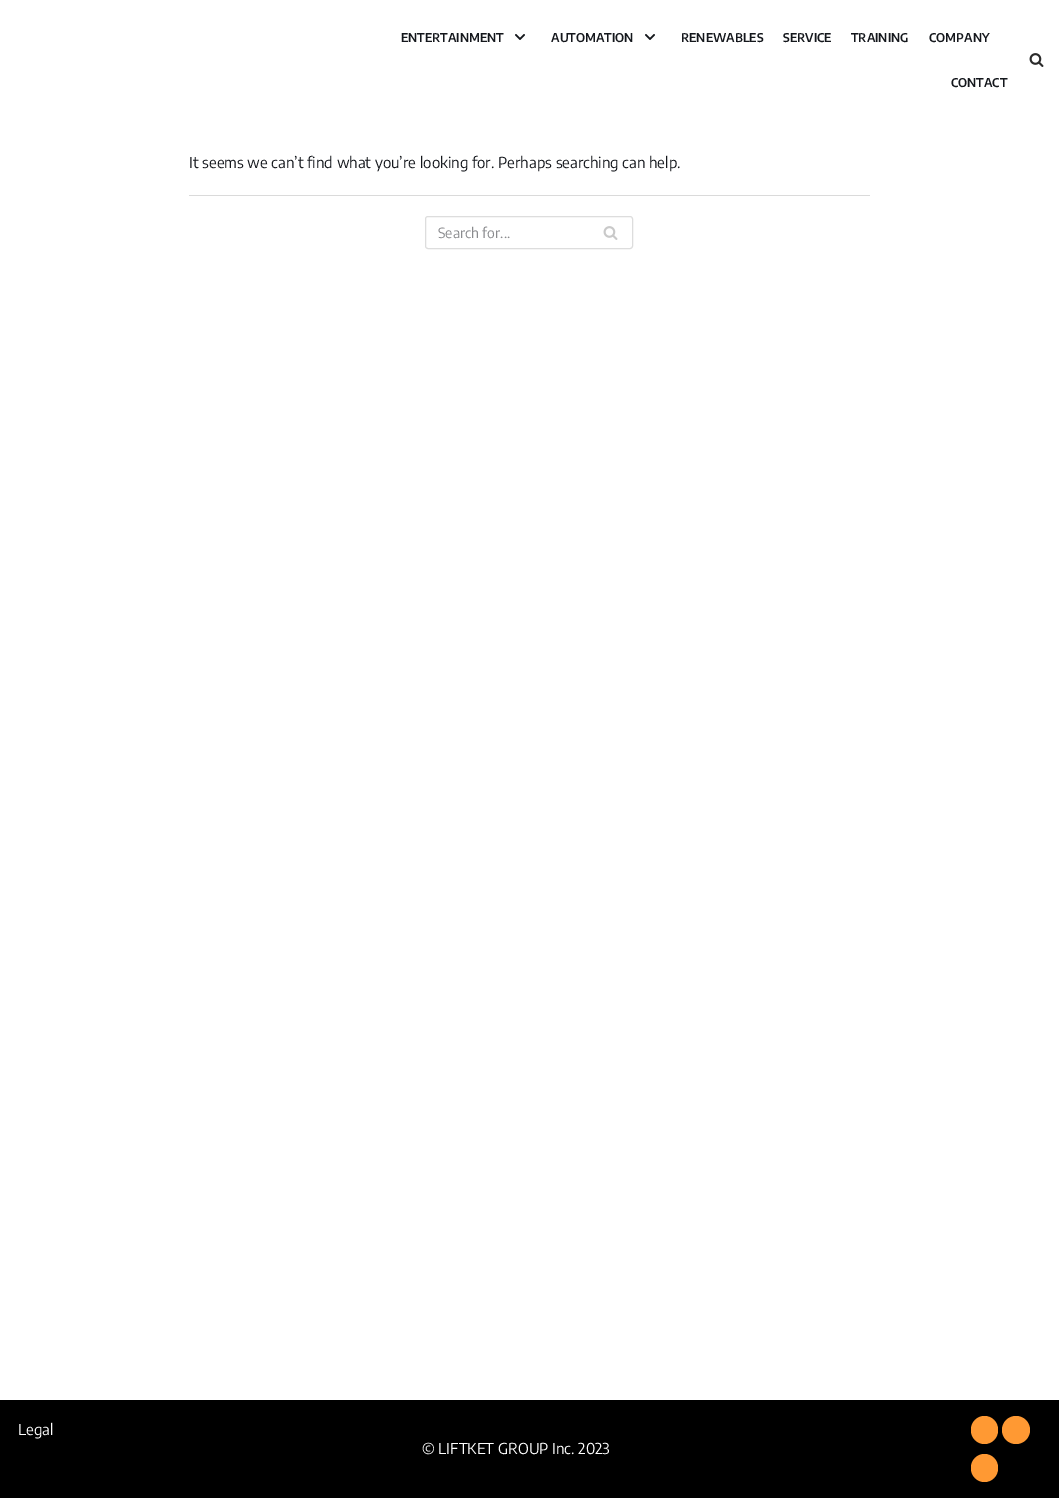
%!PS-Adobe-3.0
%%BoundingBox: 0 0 1059 1498
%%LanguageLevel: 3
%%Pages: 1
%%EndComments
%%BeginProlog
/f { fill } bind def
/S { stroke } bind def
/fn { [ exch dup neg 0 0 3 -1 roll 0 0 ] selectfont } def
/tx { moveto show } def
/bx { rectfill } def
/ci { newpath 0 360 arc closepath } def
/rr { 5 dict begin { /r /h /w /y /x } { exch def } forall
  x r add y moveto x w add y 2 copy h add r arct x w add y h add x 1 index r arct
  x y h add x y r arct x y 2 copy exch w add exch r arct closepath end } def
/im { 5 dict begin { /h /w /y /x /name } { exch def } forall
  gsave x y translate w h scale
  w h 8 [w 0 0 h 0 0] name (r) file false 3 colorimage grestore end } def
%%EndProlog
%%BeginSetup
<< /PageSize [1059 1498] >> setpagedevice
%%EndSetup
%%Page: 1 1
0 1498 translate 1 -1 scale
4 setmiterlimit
1 setgray
0 0 1059 1498 bx
/EncodeSansCondensed-SemiBold 12 fn
0.078 0.09 0.11 setrgbcolor
(ENTERTAINMENT) 401 42 tx
(image0.raw) 515 34 10 6 im
(AUTOMATION) 551 42 tx
(image0.raw) 645 34 10 6 im
(RENEWABLES) 681 42 tx
(SERVICE) 783 42 tx
(TRAINING) 851 42 tx
(COMPANY) 929 42 tx
(CONTACT) 951 87 tx
(image1.raw) 1029 53 15 14 im
/EncodeSansCondensed-Regular 15 fn
(It seems we can’t find what you’re looking for. Perhaps searching can help.) 189 168 tx
0.855 setgray
189 195 681 1 bx
0.867 setgray
425.5 216.5 207 32 2.5 rr S
/EncodeSansCondensed-Regular 14 fn
0.541 0.545 0.557 setrgbcolor
(Search for...) 438 238 tx
(image2.raw) 603 226 15 14 im
0 setgray
0 1400 1059 98 bx
/EncodeSansCondensed-Regular 15 fn
1 setgray
(Legal) 18 1435 tx
1 0.6 0.2 setrgbcolor
971 1416 27 28 13.5 rr f
1016 1430 14 ci f
971 1454 27 28 13.5 rr f
1 setgray
(© LIFTKET GROUP Inc. 2023) 422 1454 tx
showpage
%%EOF
